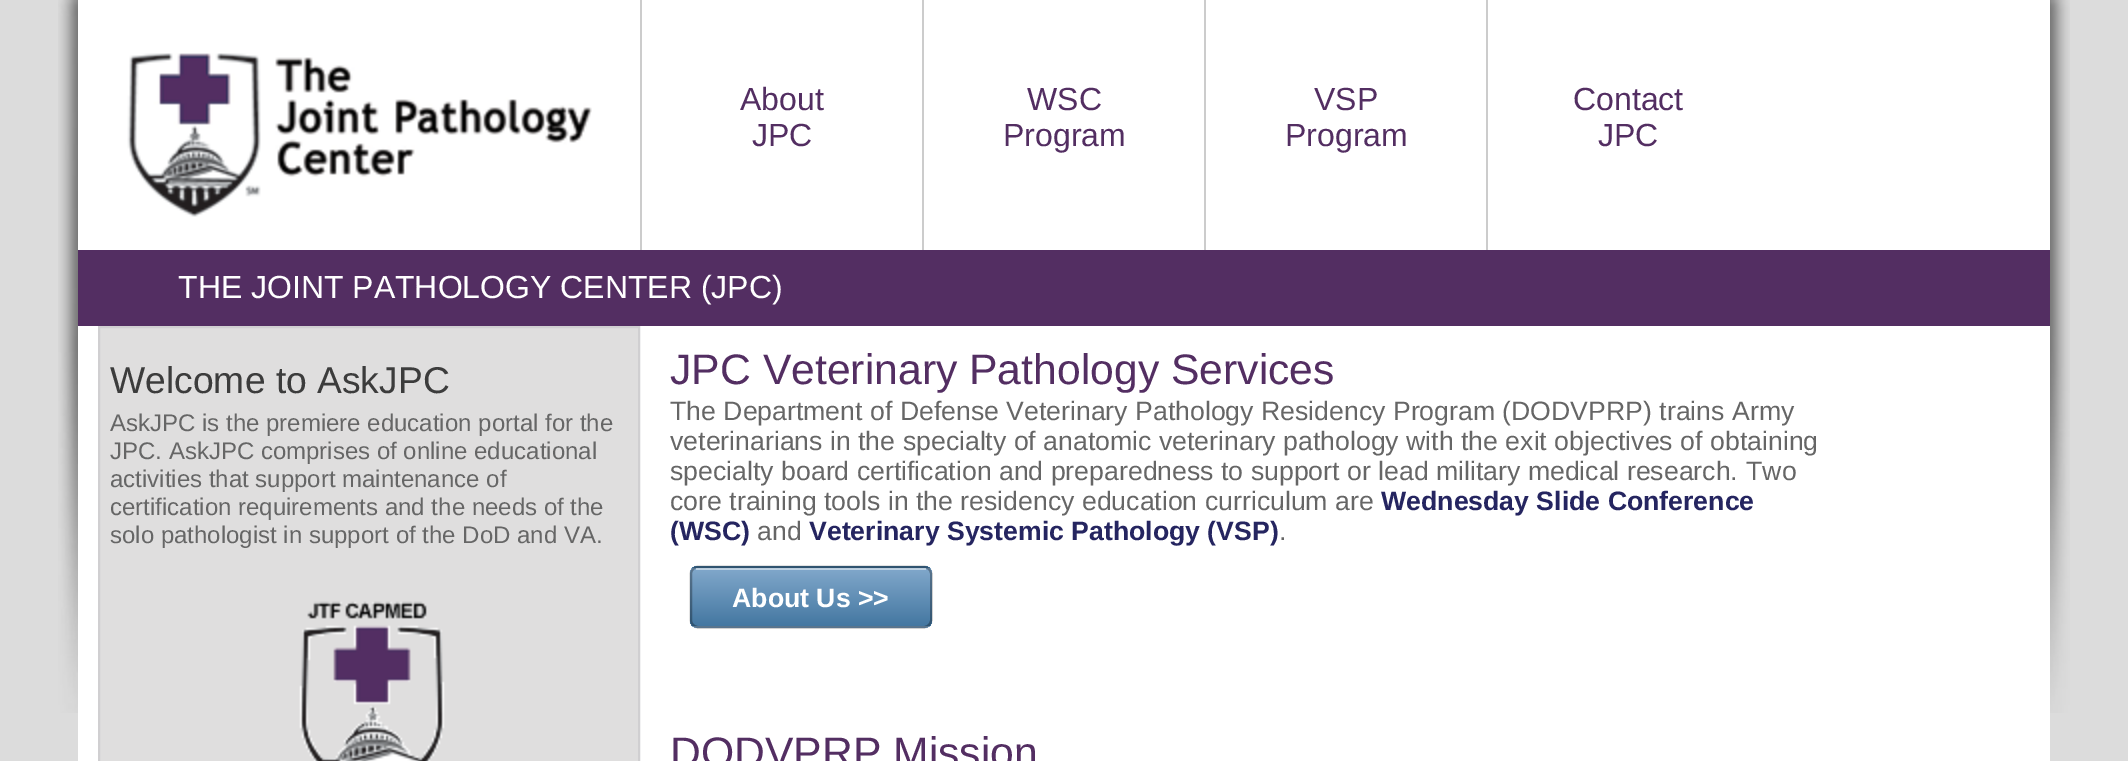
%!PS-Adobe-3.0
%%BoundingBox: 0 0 2128 761
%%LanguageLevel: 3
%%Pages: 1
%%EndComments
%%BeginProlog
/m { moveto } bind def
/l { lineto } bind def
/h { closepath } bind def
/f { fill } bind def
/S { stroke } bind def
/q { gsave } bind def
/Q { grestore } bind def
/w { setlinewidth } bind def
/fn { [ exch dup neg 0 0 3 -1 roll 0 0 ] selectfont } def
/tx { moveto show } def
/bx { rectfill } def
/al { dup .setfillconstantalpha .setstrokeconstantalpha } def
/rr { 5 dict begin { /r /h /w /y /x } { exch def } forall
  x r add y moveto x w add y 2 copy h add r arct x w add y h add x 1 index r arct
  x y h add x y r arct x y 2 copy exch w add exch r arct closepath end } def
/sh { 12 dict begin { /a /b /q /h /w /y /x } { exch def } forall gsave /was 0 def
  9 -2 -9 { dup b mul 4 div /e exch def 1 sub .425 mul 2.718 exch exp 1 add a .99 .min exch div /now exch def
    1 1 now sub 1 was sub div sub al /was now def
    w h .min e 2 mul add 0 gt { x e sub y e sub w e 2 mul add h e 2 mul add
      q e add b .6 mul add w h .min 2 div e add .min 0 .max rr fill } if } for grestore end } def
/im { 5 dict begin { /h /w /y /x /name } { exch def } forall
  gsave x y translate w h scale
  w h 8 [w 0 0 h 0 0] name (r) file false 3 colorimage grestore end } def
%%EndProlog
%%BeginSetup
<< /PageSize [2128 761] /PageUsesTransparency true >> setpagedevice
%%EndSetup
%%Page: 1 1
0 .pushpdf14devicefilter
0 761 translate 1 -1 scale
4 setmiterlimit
0.863 setgray
0 0 2128 761 bx
(image0.raw) 58 0 2012 713 im
1 setgray
78 0 1972 761 bx
(image1.raw) 127 53 465 164 im
0.8 setgray
640 0 2 250 bx
/LiberationSans-Regular 32 fn
0.325 0.18 0.384 setrgbcolor
(About) 740 110 tx
(JPC) 752 146 tx
0.8 setgray
922 0 2 250 bx
0.325 0.18 0.384 setrgbcolor
(WSC) 1027 110 tx
(Program) 1003 146 tx
0.8 setgray
1204 0 2 250 bx
0.325 0.18 0.384 setrgbcolor
(VSP) 1314 110 tx
(Program) 1285 146 tx
0.8 setgray
1486 0 2 250 bx
0.325 0.18 0.384 setrgbcolor
(Contact) 1573 110 tx
(JPC) 1598 146 tx
78 250 1972 76 bx
1 setgray
(THE JOINT PATHOLOGY CENTER \(JPC\)) 178 298 tx
0.875 0.871 0.871 setrgbcolor
99 327 m 639 327 l 639 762 l 99 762 l h q f Q
0.816 0.812 0.82 setrgbcolor
2 w
S
/LiberationSans-Regular 37.25 fn
0.235 setgray
(Welcome to AskJPC) 110 393 tx
/LiberationSans-Regular 24 fn
0.4 setgray
(AskJPC is the premiere education portal for the) 110 431 tx
(JPC. AskJPC comprises of online educational) 110 459 tx
(activities that support maintenance of) 110 487 tx
(certification requirements and the needs of the) 110 515 tx
(solo pathologist in support of the DoD and VA.) 110 543 tx
(image2.raw) 299 601 146 160 im
/LiberationSans-Regular 42.7 fn
0.325 0.18 0.384 setrgbcolor
(JPC Veterinary Pathology Services) 670 384 tx
/LiberationSans-Regular 26.65 fn
0.4 setgray
(The Department of Defense Veterinary Pathology Residency Program \(DODVPRP\) trains Army) 670 420 tx
(veterinarians in the specialty of anatomic veterinary pathology with the exit objectives of) 670 450 tx
(obtaining) 1710 450 tx
(specialty board certification and preparedness to support or lead military medical research.) 670 480 tx
(Two) 1746 480 tx
(core training tools in the residency education curriculum are) 670 510 tx
/LiberationSans-Bold 26.65 fn
0.145 0.145 0.376 setrgbcolor
(Wednesday Slide Conference) 1381 510 tx
(\(WSC\)) 670 540 tx
/LiberationSans-Regular 26.65 fn
0.4 setgray
(and) 757 540 tx
/LiberationSans-Bold 26.65 fn
0.145 0.145 0.376 setrgbcolor
(Veterinary Systemic Pathology \(VSP\)) 809 540 tx
/LiberationSans-Regular 26.65 fn
0.4 setgray
(.) 1279 540 tx
0 setgray
690 566 242 62 8 0.5 0.4 sh
q
690 566 242 62 8 rr clip newpath
q 690 566 m 932 566 l 932 568 l 690 568 l h clip newpath
<< /ShadingType 2 /ColorSpace /DeviceRGB /Coords [692 510 692 568] /Extend [true true] /Function << /FunctionType 2 /Domain [0 1] /C0 [0.506 0.659 0.796] /C1 [0.267 0.467 0.631] /N 1 >> >> shfill Q
q 690 568 m 932 568 l 932 626 l 690 626 l h clip newpath
<< /ShadingType 2 /ColorSpace /DeviceRGB /Coords [692 568 692 626] /Extend [true true] /Function << /FunctionType 2 /Domain [0 1] /C0 [0.506 0.659 0.796] /C1 [0.267 0.467 0.631] /N 1 >> >> shfill Q
q 690 626 m 932 626 l 932 628 l 690 628 l h clip newpath
<< /ShadingType 2 /ColorSpace /DeviceRGB /Coords [692 626 692 684] /Extend [true true] /Function << /FunctionType 2 /Domain [0 1] /C0 [0.506 0.659 0.796] /C1 [0.267 0.467 0.631] /N 1 >> >> shfill Q
Q
0.3 al
691 567 240 60 7 rr S
0.5 al
1 setgray
696 568 230 2 bx
/LiberationSans-Bold 26.65 fn
1 al
(About Us >>) 732 607 tx
/LiberationSans-Regular 42.7 fn
0.325 0.18 0.384 setrgbcolor
(DODVPRP Mission) 670 767 tx
.poppdf14devicefilter showpage
%%EOF
